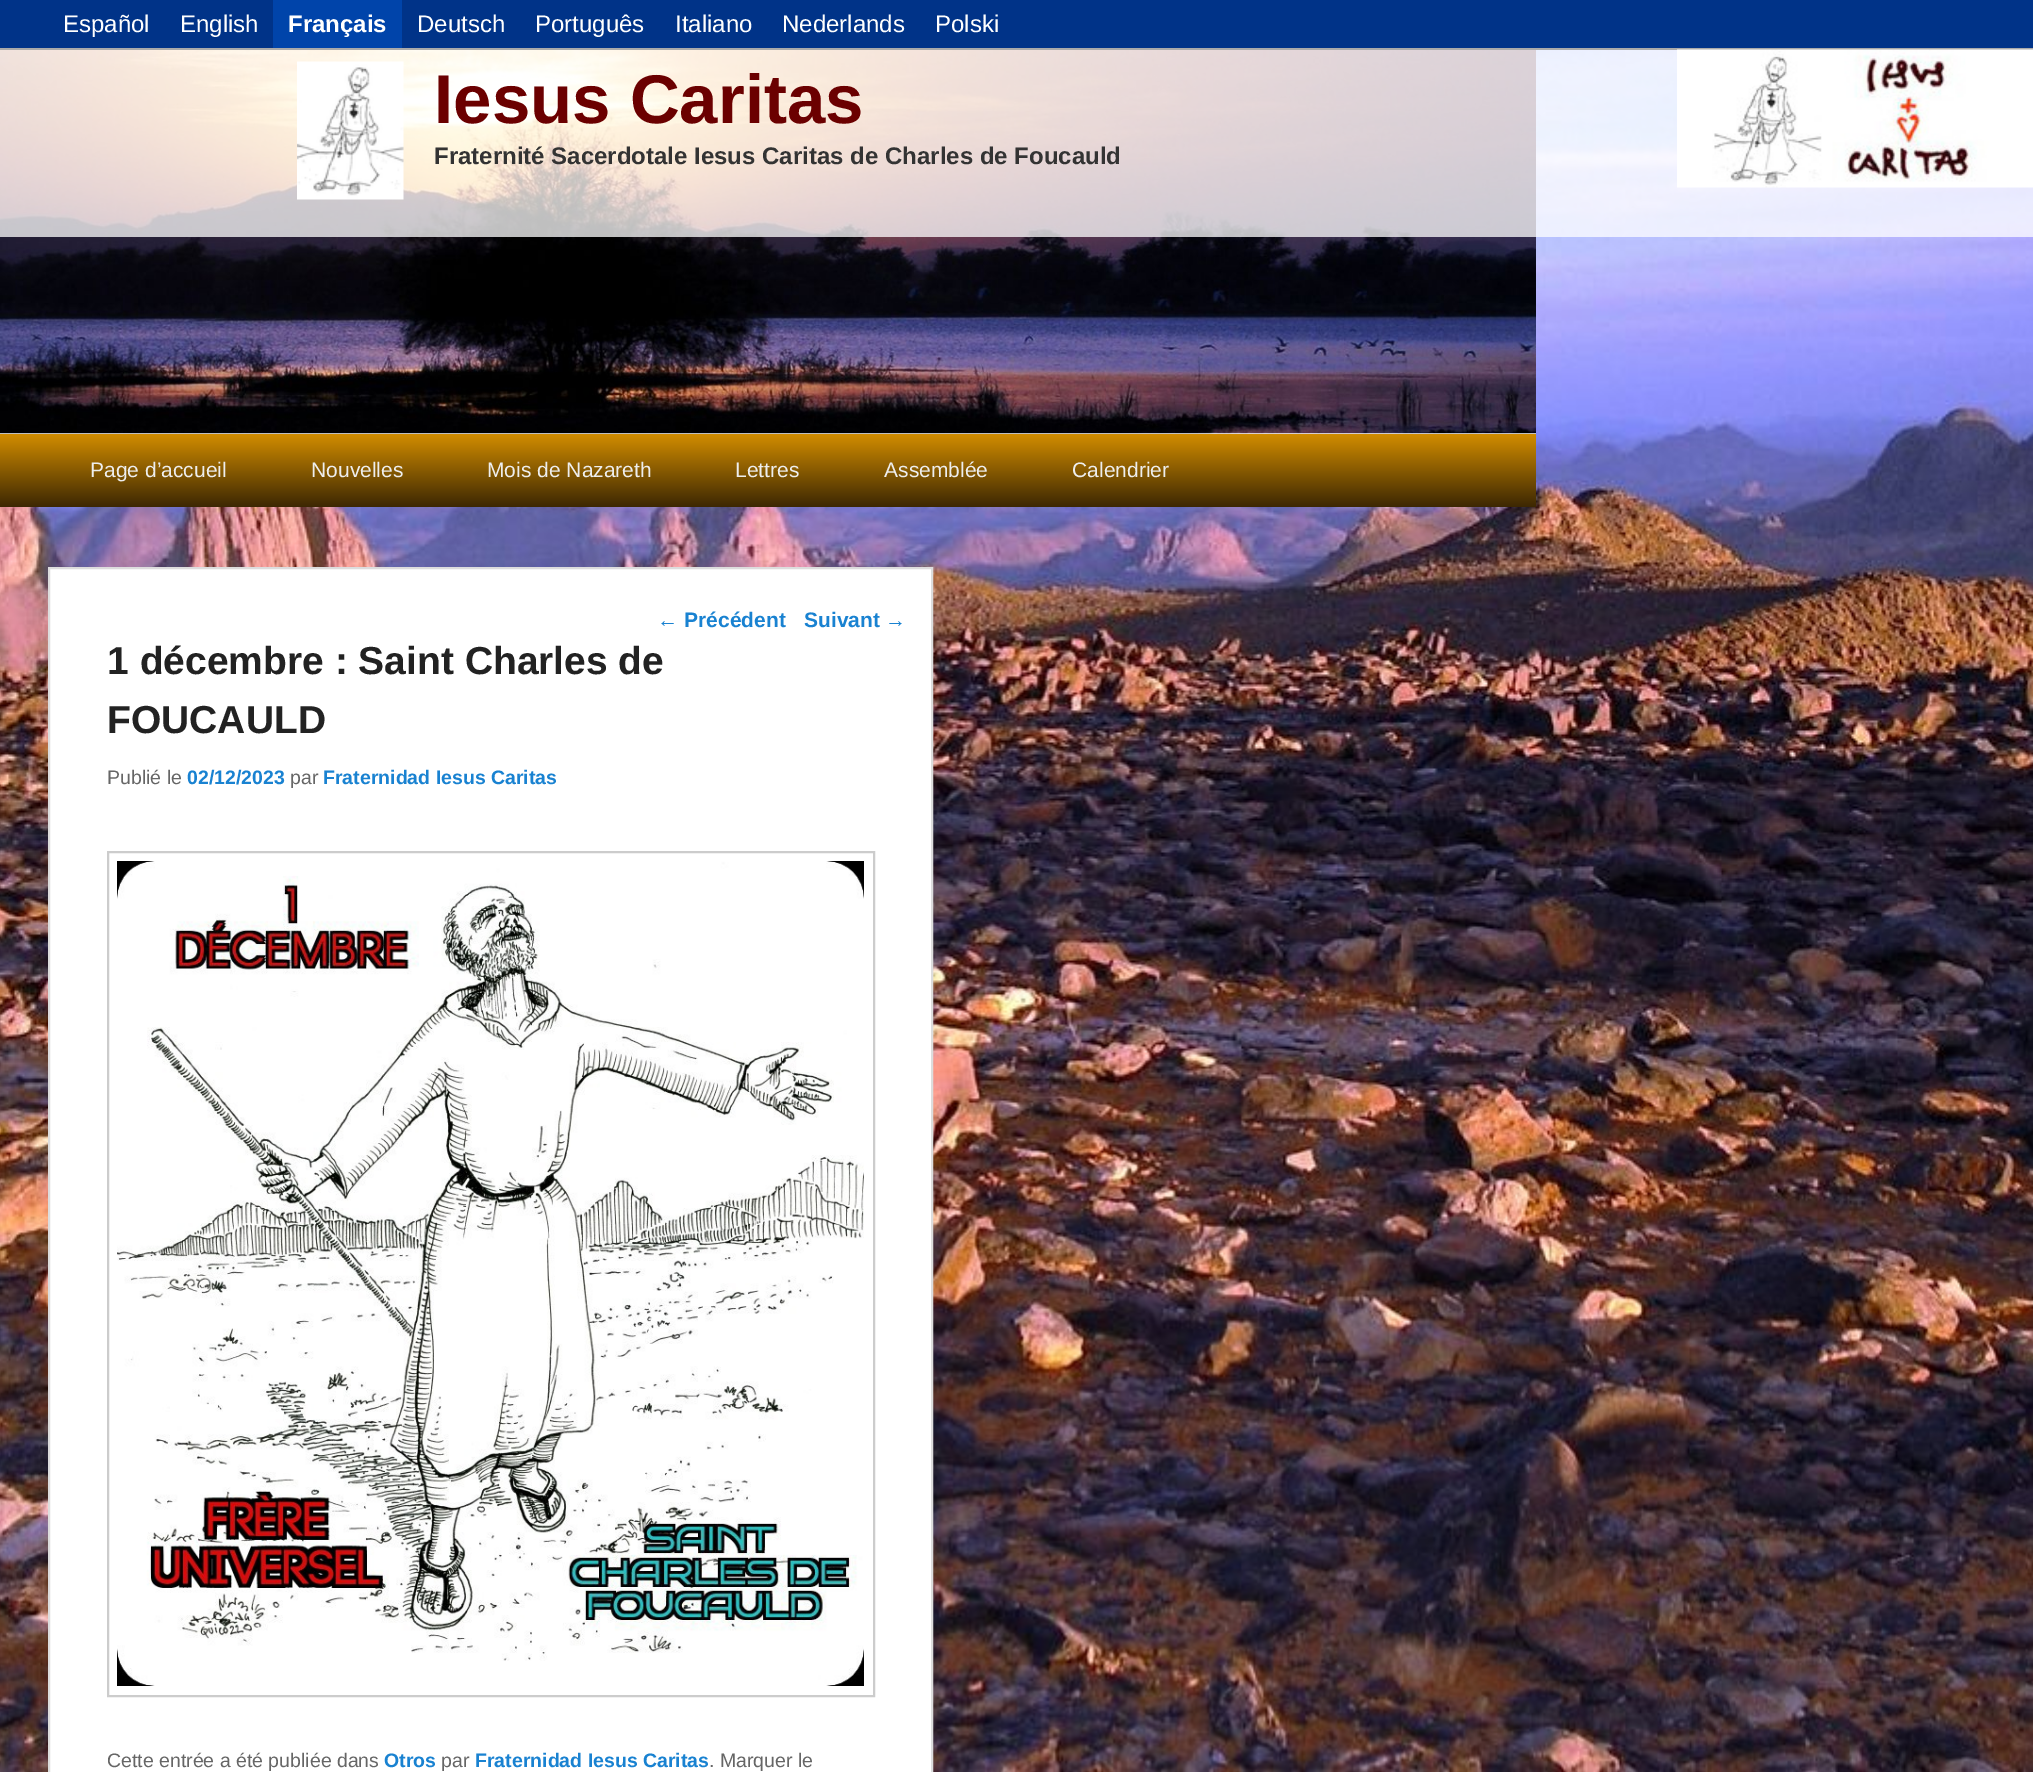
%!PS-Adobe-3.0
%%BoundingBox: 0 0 2033 1772
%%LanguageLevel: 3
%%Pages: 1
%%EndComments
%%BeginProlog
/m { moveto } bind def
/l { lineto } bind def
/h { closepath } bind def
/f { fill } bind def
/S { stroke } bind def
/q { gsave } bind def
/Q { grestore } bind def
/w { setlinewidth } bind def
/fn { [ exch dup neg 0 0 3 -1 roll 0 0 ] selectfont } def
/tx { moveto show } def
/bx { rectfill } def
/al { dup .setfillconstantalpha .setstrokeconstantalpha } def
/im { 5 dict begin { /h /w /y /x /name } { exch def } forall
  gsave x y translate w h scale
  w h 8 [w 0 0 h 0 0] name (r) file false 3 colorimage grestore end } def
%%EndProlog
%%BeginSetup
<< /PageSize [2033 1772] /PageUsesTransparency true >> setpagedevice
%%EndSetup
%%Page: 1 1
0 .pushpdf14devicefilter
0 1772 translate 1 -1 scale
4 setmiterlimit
1 setgray
0 0 2033 1772 bx
(image0.raw) 0 50 2033 1722 im
0 0.2 0.533 setrgbcolor
0 0 2033 48 bx
0.667 setgray
0 48 2033 2 bx
/LiberationSans-Regular 24 fn
1 setgray
(Español) 63 32 tx
(English) 180 32 tx
0 0.267 0.667 setrgbcolor
273 0 129 48 bx
/LiberationSans-Bold 24 fn
1 setgray
(Français) 288 32 tx
/LiberationSans-Regular 24 fn
(Deutsch) 417 32 tx
(Português) 535 32 tx
(Italiano) 675 32 tx
(Nederlands) 782 32 tx
(Polski) 935 32 tx
0 433 1536 1 bx
(image1.raw) 0 50 1536 384 im
0.75 al
0 50 2033 187 bx
1 al
(image2.raw) 297 61 107 139 im
/LiberationSans-Bold 69 fn
0.42 0 0 setrgbcolor
(Iesus Caritas) 434 123 tx
/LiberationSans-Bold 24 fn
0.2 setgray
(Fraternité Sacerdotale Iesus Caritas de Charles de Foucauld) 434 164 tx
(image3.raw) 1677 49 356 139 im
q 0 434 m 1536 434 l 1536 507 l 0 507 l h clip newpath
<< /ShadingType 2 /ColorSpace /DeviceRGB /Coords [768 433 768 507] /Extend [true true] /Function << /FunctionType 2 /Domain [0 1] /C0 [0.831 0.557 0] /C1 [0.235 0.153 0.012] /N 1 >> >> shfill Q
/LiberationSans-Regular 21 fn
0.933 setgray
(Page d’accueil) 90 477 tx
(Nouvelles) 311 477 tx
(Mois de Nazareth) 487 477 tx
(Lettres) 735 477 tx
(Assemblée) 884 477 tx
(Calendrier) 1072 477 tx
1 setgray
49 568 m 932 568 l 932 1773 l 49 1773 l h q f Q
0.867 setgray
2 w
S
0.098 0.51 0.82 setrgbcolor
(←) 657 627 tx
/LiberationSans-Bold 21 fn
(Précédent) 684 627 tx
(Suivant) 804 627 tx
/LiberationSans-Regular 21 fn
(→) 885 627 tx
/LiberationSans-Bold 39 fn
0.133 setgray
(1 décembre : Saint Charles de) 107 674 tx
(FOUCAULD) 107 733 tx
/LiberationSans-Regular 19.5 fn
0.4 setgray
(Publié le) 107 784 tx
/LiberationSans-Bold 19.5 fn
0.098 0.51 0.82 setrgbcolor
(02/12/2023) 187 784 tx
/LiberationSans-Regular 19.5 fn
0.4 setgray
(par) 290 784 tx
/LiberationSans-Bold 19.5 fn
0.098 0.51 0.82 setrgbcolor
(Fraternidad Iesus Caritas) 323 784 tx
0.8 setgray
108 852 766 844 rectstroke
(image4.raw) 117 861 747 825 im
/LiberationSans-Regular 19.5 fn
0.4 setgray
(Cette entrée a été publiée dans) 107 1767 tx
/LiberationSans-Bold 19.5 fn
0.098 0.51 0.82 setrgbcolor
(Otros) 384 1767 tx
/LiberationSans-Regular 19.5 fn
0.4 setgray
(par) 441 1767 tx
/LiberationSans-Bold 19.5 fn
0.098 0.51 0.82 setrgbcolor
(Fraternidad Iesus Caritas) 475 1767 tx
/LiberationSans-Regular 19.5 fn
0.4 setgray
(. Marquer le) 709 1767 tx
.poppdf14devicefilter showpage
%%EOF
